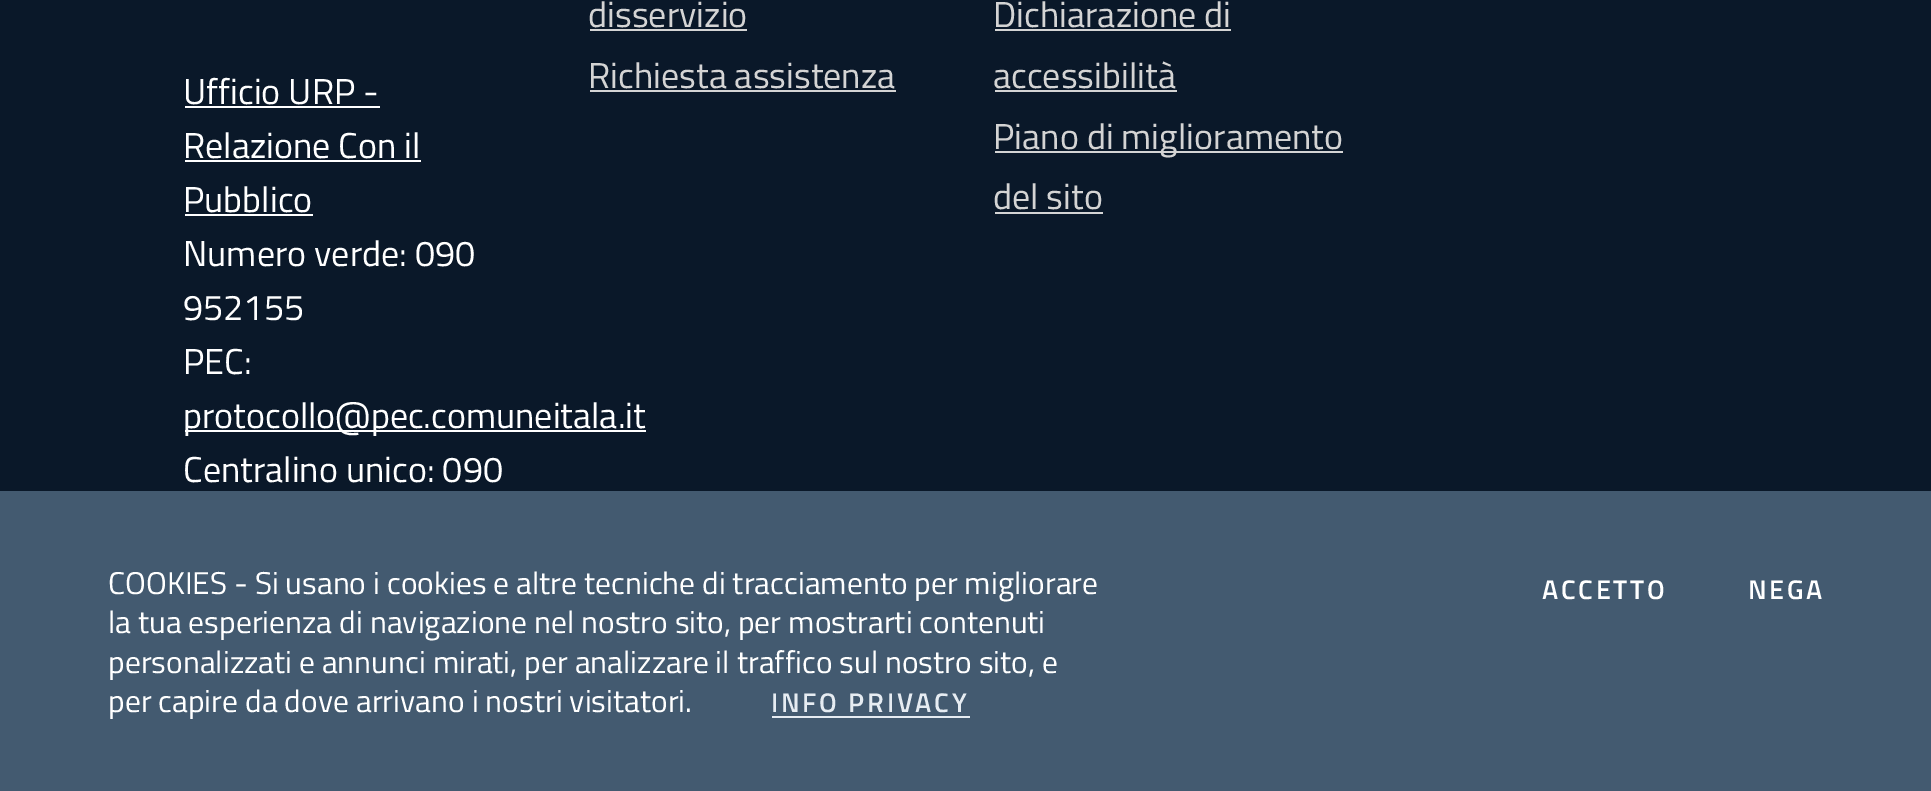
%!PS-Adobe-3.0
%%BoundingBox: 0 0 1931 791
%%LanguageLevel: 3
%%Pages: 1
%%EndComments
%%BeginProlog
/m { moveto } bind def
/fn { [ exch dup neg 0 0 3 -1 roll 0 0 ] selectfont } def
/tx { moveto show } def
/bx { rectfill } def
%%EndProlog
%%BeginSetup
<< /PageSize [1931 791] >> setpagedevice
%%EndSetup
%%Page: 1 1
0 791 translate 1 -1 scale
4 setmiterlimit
0.039 0.094 0.161 setrgbcolor
0 0 1931 791 bx
/TitilliumWeb-Regular 36 fn
1 setgray
(Ufficio URP -) 183 104 tx
185 106 195 2 bx
(Relazione Con il) 183 158 tx
185 160 236 2 bx
(Pubblico) 183 212 tx
185 214 128 2 bx
(Numero verde: 090) 183 266 tx
(952155) 183 320 tx
(PEC:) 183 374 tx
185 430 461 2 bx
(protocollo@pec.comuneitala.it) 183 428 tx
(Centralino unico: 090) 183 482 tx
0.831 setgray
(disservizio) 588 27 tx
590 29 157 2 bx
(Richiesta assistenza) 588 88 tx
590 90 306 2 bx
(Dichiarazione di) 993 27 tx
995 29 236 2 bx
(accessibilità) 993 88 tx
995 90 182 2 bx
995 151 348 2 bx
(Piano di miglioramento) 993 149 tx
(del sito) 993 209 tx
995 212 108 2 bx
0.263 0.353 0.439 setrgbcolor
0 491 1931 300 bx
/TitilliumWeb-Regular 31.5 fn
1 setgray
(COOKIES - Si usano i cookies e altre tecniche di tracciamento per migliorare) 108 594 tx
(la tua esperienza di navigazione nel nostro sito, per mostrarti contenuti) 108 633 tx
(personalizzati e annunci mirati, per analizzare il traffico sul nostro sito, e) 108 673 tx
(per capire da dove arrivano i nostri visitatori.) 108 712 tx
/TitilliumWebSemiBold-SemiBold 27 fn
0.902 0.925 0.949 setrgbcolor
771 712 m 2.75 0 (INFO PRIVACY) ashow
772 716 198 2 bx
1 setgray
1542 599 m 2.75 0 (ACCETTO) ashow
1748 599 m 2.75 0 (NEGA) ashow
showpage
%%EOF
